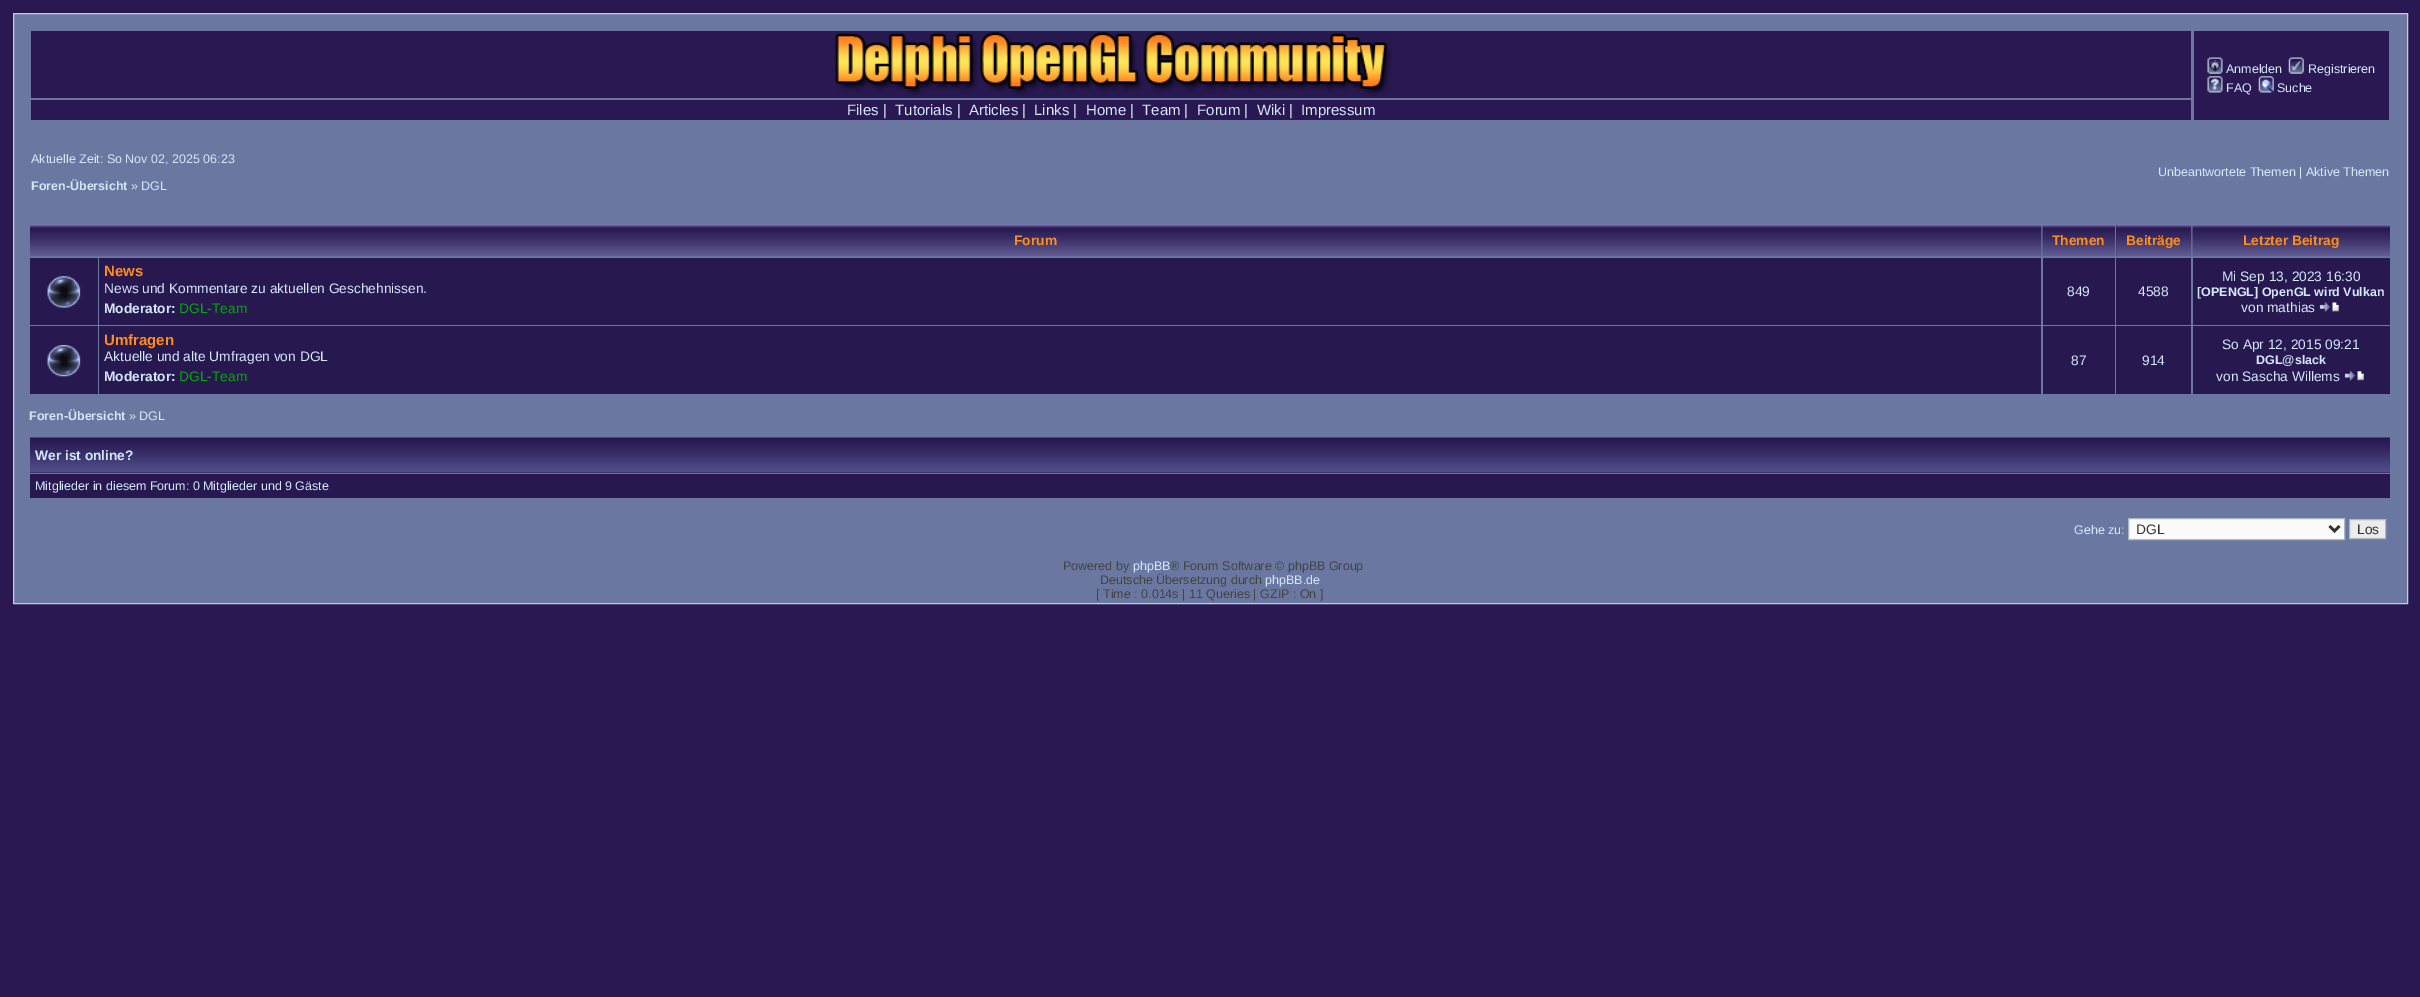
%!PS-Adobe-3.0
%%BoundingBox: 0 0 2420 997
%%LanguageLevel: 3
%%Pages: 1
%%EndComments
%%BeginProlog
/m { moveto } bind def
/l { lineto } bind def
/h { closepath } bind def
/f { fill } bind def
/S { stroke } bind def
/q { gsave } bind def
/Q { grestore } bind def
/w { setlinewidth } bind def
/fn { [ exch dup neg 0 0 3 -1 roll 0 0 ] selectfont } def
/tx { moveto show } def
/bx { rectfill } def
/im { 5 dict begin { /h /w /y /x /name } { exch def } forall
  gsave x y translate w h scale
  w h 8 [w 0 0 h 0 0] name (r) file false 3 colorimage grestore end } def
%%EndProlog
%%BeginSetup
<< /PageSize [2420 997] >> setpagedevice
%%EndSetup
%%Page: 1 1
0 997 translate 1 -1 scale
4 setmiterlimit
0.161 0.094 0.322 setrgbcolor
0 0 2420 997 bx
0.412 0.467 0.631 setrgbcolor
13.5 13.5 m 2407.5 13.5 l 2407.5 603.5 l 13.5 603.5 l h q f Q
0.784 0.792 0.839 setrgbcolor
S
0.161 0.094 0.322 setrgbcolor
31 31 2160 67 bx
(image0.raw) 835 32 557 64 im
2194 31 195 89 bx
(image1.raw) 2207 57 16 17 im
/LiberationSans-Regular 12.5 fn
0.831 0.91 0.996 setrgbcolor
(Anmelden) 2226 73 tx
(image2.raw) 2288 57 16 17 im
(Registrieren) 2308 73 tx
(image3.raw) 2207 76 16 17 im
(FAQ) 2226 92 tx
(image4.raw) 2258 76 16 17 im
(Suche) 2277 92 tx
0.161 0.094 0.322 setrgbcolor
31 100 2160 20 bx
/LiberationSans-Regular 15 fn
0.831 0.91 0.996 setrgbcolor
(Files |) 847 115 tx
(Tutorials |) 895 115 tx
(Articles |) 969 115 tx
(Links |) 1034 115 tx
(Home |) 1086 115 tx
(Team |) 1142 115 tx
(Forum |) 1197 115 tx
(Wiki |) 1257 115 tx
(Impressum) 1301 115 tx
/LiberationSans-Regular 12.5 fn
(Aktuelle Zeit: So Nov 02, 2025 06:23) 31 163 tx
/LiberationSans-Bold 12.5 fn
(Foren-Übersicht) 31 190 tx
/LiberationSans-Regular 12.5 fn
(» DGL) 131 190 tx
(Unbeantwortete Themen | Aktive Themen) 2158 176 tx
(image5.raw) 30 224 2012 33 im
/LiberationSans-Bold 13.75 fn
1 0.553 0.114 setrgbcolor
(Forum) 1014 245 tx
(image6.raw) 2042 224 73 33 im
(Themen) 2052 245 tx
(image7.raw) 2116 224 76 33 im
(Beiträge) 2126 245 tx
(image8.raw) 2192 224 198 33 im
(Letzter Beitrag) 2243 245 tx
0.157 0.094 0.314 setrgbcolor
30 258 68 67 bx
(image9.raw) 47 276 34 32 im
99 258 1942 67 bx
/LiberationSans-Bold 15 fn
1 0.553 0.114 setrgbcolor
(News) 104 276 tx
/LiberationSans-Regular 13.75 fn
0.831 0.91 0.996 setrgbcolor
(News und Kommentare zu aktuellen Geschehnissen.) 104 293 tx
/LiberationSans-Bold 13.75 fn
(Moderator:) 104 313 tx
/LiberationSans-Regular 13.75 fn
0 0.667 0 setrgbcolor
(DGL-Team) 179 313 tx
0.157 0.094 0.314 setrgbcolor
2043 258 72 67 bx
0.831 0.91 0.996 setrgbcolor
(849) 2067 296 tx
0.157 0.094 0.314 setrgbcolor
2116 258 75 67 bx
0.831 0.91 0.996 setrgbcolor
(4588) 2138 296 tx
0.157 0.094 0.314 setrgbcolor
2193 258 197 67 bx
0.831 0.91 0.996 setrgbcolor
(Mi Sep 13, 2023 16:30) 2222 281 tx
/LiberationSans-Bold 12.5 fn
([OPENGL] OpenGL wird Vulkan) 2197 296 tx
/LiberationSans-Regular 13.75 fn
(von mathias) 2241 312 tx
(image10.raw) 2319 302 20 10 im
0.157 0.094 0.314 setrgbcolor
30 326 68 68 bx
(image11.raw) 47 345 34 32 im
99 326 1942 68 bx
/LiberationSans-Bold 15 fn
1 0.553 0.114 setrgbcolor
(Umfragen) 104 345 tx
/LiberationSans-Regular 13.75 fn
0.831 0.91 0.996 setrgbcolor
(Aktuelle und alte Umfragen von DGL) 104 361 tx
/LiberationSans-Bold 13.75 fn
(Moderator:) 104 381 tx
/LiberationSans-Regular 13.75 fn
0 0.667 0 setrgbcolor
(DGL-Team) 179 381 tx
0.157 0.094 0.314 setrgbcolor
2043 326 72 68 bx
0.831 0.91 0.996 setrgbcolor
(87) 2071 365 tx
0.157 0.094 0.314 setrgbcolor
2116 326 75 68 bx
0.831 0.91 0.996 setrgbcolor
(914) 2142 365 tx
0.157 0.094 0.314 setrgbcolor
2193 326 197 68 bx
0.831 0.91 0.996 setrgbcolor
(So Apr 12, 2015 09:21) 2222 349 tx
/LiberationSans-Bold 12.5 fn
(DGL@slack) 2256 364 tx
/LiberationSans-Regular 13.75 fn
(von Sascha Willems) 2216 381 tx
(image12.raw) 2344 371 20 10 im
/LiberationSans-Bold 12.5 fn
(Foren-Übersicht) 29 420 tx
/LiberationSans-Regular 12.5 fn
(» DGL) 129 420 tx
0.161 0.094 0.322 setrgbcolor
30 472 2360 1 bx
(image13.raw) 30 437 2360 36 im
/LiberationSans-Bold 13.75 fn
0.831 0.91 0.996 setrgbcolor
(Wer ist online?) 35 460 tx
0.157 0.094 0.314 setrgbcolor
30 474 2360 24 bx
/LiberationSans-Regular 12.5 fn
0.831 0.91 0.996 setrgbcolor
(Mitglieder in diesem Forum: 0 Mitglieder und 9 Gäste) 35 490 tx
(Gehe zu:) 2074 534 tx
0.98 setgray
2128.5 518.5 m 2344.5 518.5 l 2344.5 539.5 l 2128.5 539.5 l h q f Q
0.663 0.722 0.761 setrgbcolor
S
0.2 setgray
2.5 w
2329.5 526 m 2334.5 531 l 2339.5 526 l S
/LiberationSans-Regular 13.75 fn
(DGL) 2136 534 tx
0.925 setgray
2349.5 519.5 m 2385.5 519.5 l 2385.5 538.5 l 2349.5 538.5 l h q f Q
0.663 0.722 0.761 setrgbcolor
1 w
S
0.2 setgray
(Los) 2357 534 tx
/LiberationSans-Regular 12.5 fn
0.267 setgray
(Powered by) 1063 570 tx
0.831 0.91 0.996 setrgbcolor
(phpBB) 1133 570 tx
0.267 setgray
(® Forum Software © phpBB Group) 1170 570 tx
(Deutsche Übersetzung durch) 1100 584 tx
0.831 0.91 0.996 setrgbcolor
(phpBB.de) 1265 584 tx
0.267 setgray
([ Time : 0.014s | 11 Queries | GZIP : On ]) 1096 598 tx
showpage
%%EOF
